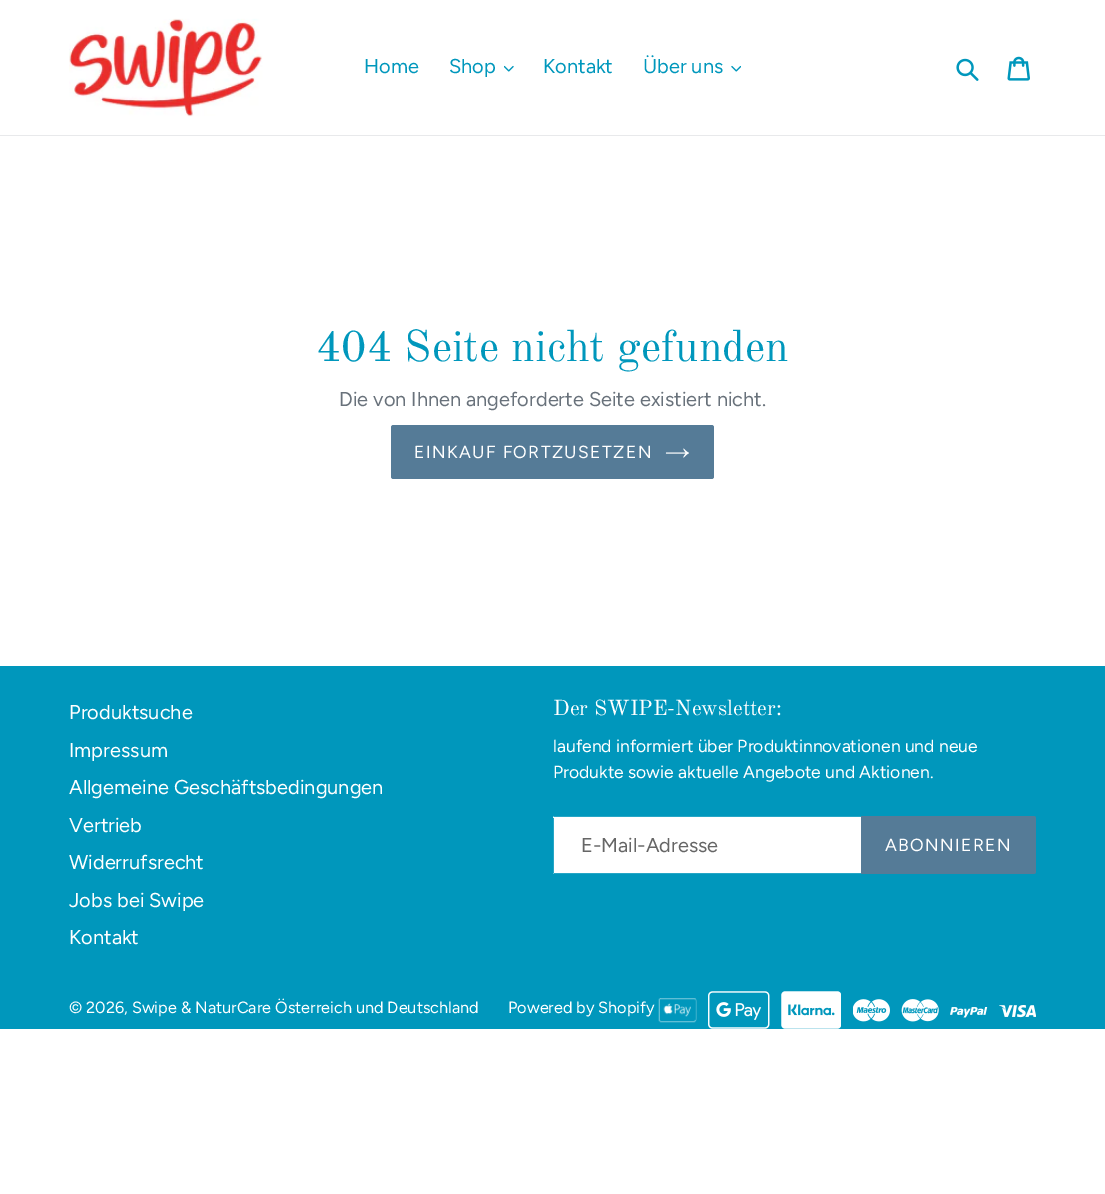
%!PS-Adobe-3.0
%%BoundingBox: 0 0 1105 1194
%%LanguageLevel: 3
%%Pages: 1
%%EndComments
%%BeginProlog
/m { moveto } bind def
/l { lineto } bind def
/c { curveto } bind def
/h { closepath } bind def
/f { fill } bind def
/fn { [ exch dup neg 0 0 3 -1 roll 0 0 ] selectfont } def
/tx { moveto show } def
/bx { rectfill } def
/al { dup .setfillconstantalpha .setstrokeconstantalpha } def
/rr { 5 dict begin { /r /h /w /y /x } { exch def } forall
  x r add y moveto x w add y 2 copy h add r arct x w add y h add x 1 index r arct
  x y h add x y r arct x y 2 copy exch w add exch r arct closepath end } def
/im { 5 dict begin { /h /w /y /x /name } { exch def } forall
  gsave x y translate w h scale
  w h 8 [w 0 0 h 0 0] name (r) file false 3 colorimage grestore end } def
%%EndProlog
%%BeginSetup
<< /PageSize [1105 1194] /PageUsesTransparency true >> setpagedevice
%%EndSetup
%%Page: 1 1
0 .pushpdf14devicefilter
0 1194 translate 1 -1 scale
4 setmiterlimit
1 setgray
0 0 1105 1194 bx
0.91 0.914 0.922 setrgbcolor
0 135 1105 1 bx
(image0.raw) 69 18 194 99 im
/Figtree-Regular 20 fn
0 0.592 0.737 setrgbcolor
(Home) 364 73 tx
(Shop) 449 73 tx
(image1.raw) 504 65 10 7 im
(Kontakt) 543 73 tx
(Über uns) 643 73 tx
(image2.raw) 731 65 10 7 im
(image3.raw) 956 58 23 23 im
(image4.raw) 1007 56 23 25 im
/OldStandardTT-Regular 43.75 fn
(404 Seite nicht gefunden) 316 361 tx
/Figtree-Regular 20 fn
0.412 0.447 0.482 setrgbcolor
(Die von Ihnen angeforderte Seite existiert nicht.) 339 406 tx
0.333 0.482 0.592 setrgbcolor
391 425 323 54 2.5 rr f
/Figtree-Regular 17.5 fn
1 setgray
414 458 m 1.4 0 (EINKAUF FORTZUSETZEN) ashow
(image5.raw) 665 448 24 10 im
0 0.592 0.737 setrgbcolor
0 666 1105 363 bx
/Figtree-Regular 20 fn
1 setgray
(Produktsuche) 69 719 tx
(Impressum) 69 757 tx
(Allgemeine Geschäftsbedingungen) 69 794 tx
(Vertrieb) 69 832 tx
(Widerrufsrecht) 69 869 tx
(Jobs bei Swipe) 69 907 tx
(Kontakt) 69 944 tx
/OldStandardTT-Regular 21.25 fn
(Der SWIPE-Newsletter:) 553 715 tx
/Figtree-Regular 17.5 fn
(laufend informiert über Produktinnovationen und neue) 553 752 tx
(Produkte sowie aktuelle Angebote und Aktionen.) 553 778 tx
555.5 816 m 861 816 l 861 874 l 555.5 874 l 554 874 553 873 553 871.5 c 553 818.5 l 553 817 554 816 555.5 816 c h f
0.85 al
0 0.592 0.737 setrgbcolor
554 816 307 1 bx
554 873 307 1 bx
553 818 1 55 bx
/Figtree-Regular 20 fn
1 al
0.4 setgray
(E-Mail-Adresse) 581 852 tx
0.333 0.482 0.592 setrgbcolor
861 816 m 1033.5 816 l 1035 816 1036 817 1036 818.5 c 1036 871.5 l 1036 873 1035 874 1033.5 874 c 861 874 l h f
/Figtree-Regular 17.5 fn
1 setgray
885 851 m 1.4 0 (ABONNIEREN) ashow
/Figtree-Regular 16.25 fn
(© 2026, Swipe & NaturCare Österreich und Deutschland) 69 1013 tx
(Powered by Shopify) 508 1013 tx
(image6.raw) 658 998 39 25 im
(image7.raw) 708 991 62 38 im
(image8.raw) 781 991 60 38 im
(image9.raw) 853 999 37 23 im
(image10.raw) 901 999 38 23 im
(image11.raw) 950 1007 38 11 im
(image12.raw) 999 1005 37 13 im
.poppdf14devicefilter showpage
%%EOF
